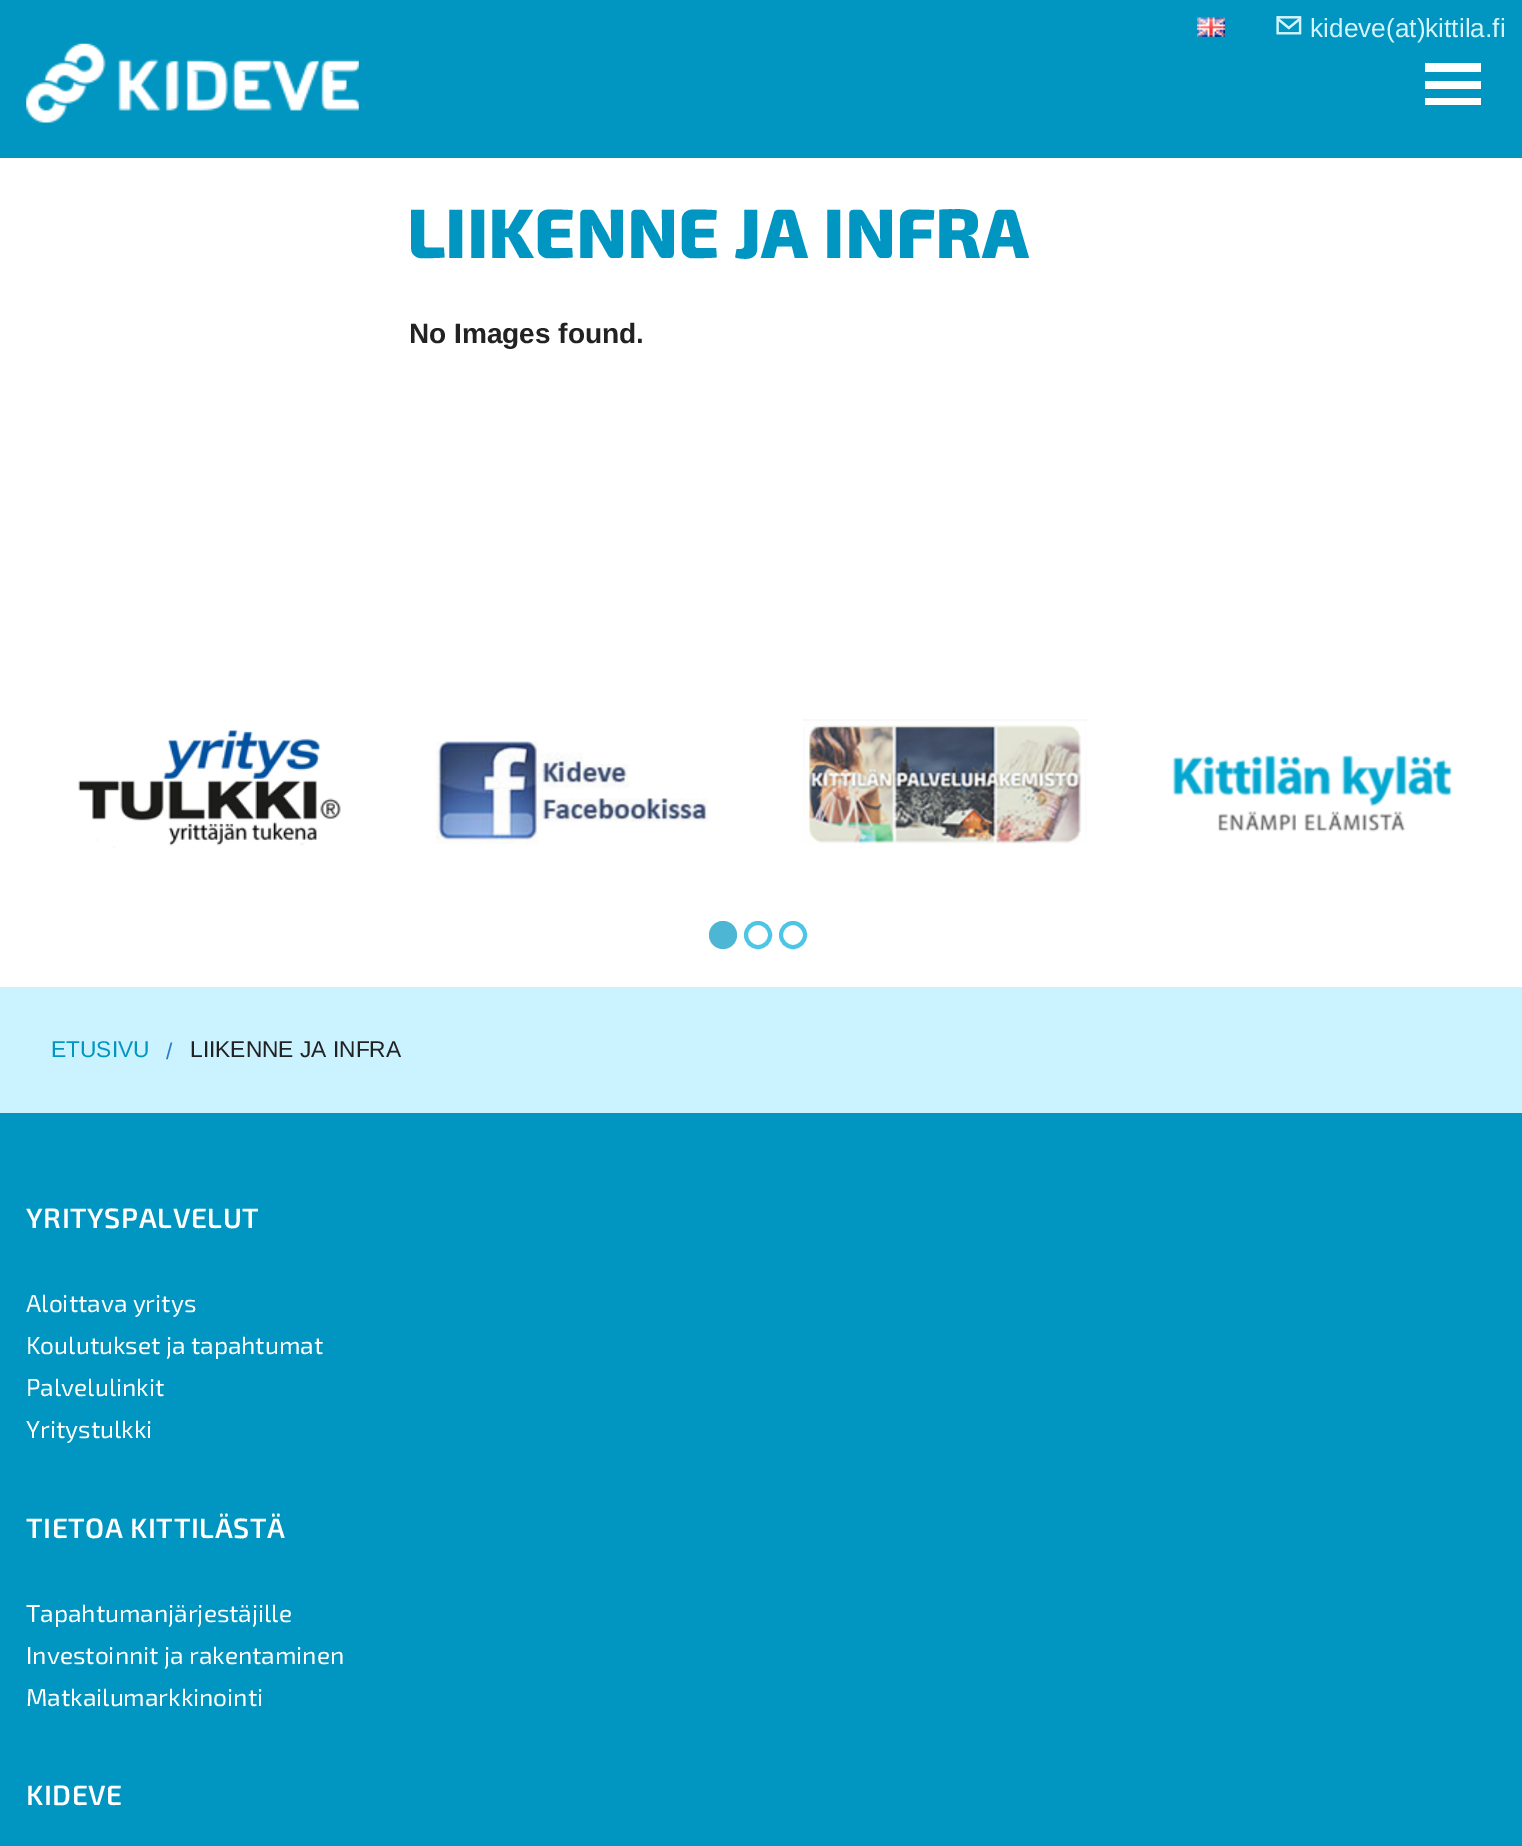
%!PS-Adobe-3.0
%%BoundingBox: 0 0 1522 1846
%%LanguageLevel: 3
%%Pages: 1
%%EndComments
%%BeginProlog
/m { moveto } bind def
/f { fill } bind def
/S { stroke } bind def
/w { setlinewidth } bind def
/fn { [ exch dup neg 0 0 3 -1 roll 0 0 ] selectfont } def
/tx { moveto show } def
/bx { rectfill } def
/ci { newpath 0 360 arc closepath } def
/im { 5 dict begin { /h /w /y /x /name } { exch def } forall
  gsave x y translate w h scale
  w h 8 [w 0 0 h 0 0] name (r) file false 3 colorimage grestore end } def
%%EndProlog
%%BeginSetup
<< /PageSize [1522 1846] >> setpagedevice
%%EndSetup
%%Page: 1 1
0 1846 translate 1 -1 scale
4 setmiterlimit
1 setgray
0 0 1522 1846 bx
0 0.588 0.757 setrgbcolor
0 0 1522 158 bx
(image0.raw) 1197 17 28 20 im
(image1.raw) 1276 16 26 19 im
/LiberationSans-Regular 26.25 fn
0.831 0.961 1 setrgbcolor
(kideve\(at\)kittila.fi) 1310 37 tx
(image2.raw) 26 43 333 80 im
1 setgray
1425 81 56 8 bx
1425 63 56 9 bx
1425 98 56 7 bx
/Exo2-ExtraBold 70 fn
0 0.588 0.757 setrgbcolor
(LIIKENNE JA INFRA) 407 258 tx
/LiberationSans-Bold 28 fn
0.133 setgray
(No Images found.) 409 343 tx
(image3.raw) 78 729 263 119 im
(image4.raw) 436 741 272 103 im
(image5.raw) 803 719 284 125 im
(image6.raw) 1172 755 280 77 im
0.302 0.714 0.831 setrgbcolor
723 935 14 ci f
0.302 0.776 0.898 setrgbcolor
4 w
758 935 12 ci S
793 935 12 ci S
0.796 0.953 1 setrgbcolor
0 987 1522 126 bx
/LiberationSans-Regular 22.75 fn
0 0.588 0.757 setrgbcolor
(ETUSIVU) 51 1057 tx
0.161 0.494 0.776 setrgbcolor
(/) 166 1059 tx
0.133 setgray
(LIIKENNE JA INFRA) 190 1057 tx
0 0.588 0.757 setrgbcolor
0 1113 1522 733 bx
/Exo2-SemiBold 28 fn
1 setgray
26 1228 m 0.6 0 (YRITYSPALVELUT) ashow
/Exo2-Regular 24.5 fn
(Aloittava yritys) 26 1312 tx
(Koulutukset ja tapahtumat) 26 1354 tx
(Palvelulinkit) 26 1396 tx
(Yritystulkki) 26 1438 tx
/Exo2-SemiBold 28 fn
26 1538 m 0.6 0 (TIETOA KITTILÄSTÄ) ashow
/Exo2-Regular 24.5 fn
(Tapahtumanjärjestäjille) 26 1622 tx
(Investoinnit ja rakentaminen) 26 1664 tx
(Matkailumarkkinointi) 26 1706 tx
/Exo2-SemiBold 28 fn
26 1805 m 0.6 0 (KIDEVE) ashow
showpage
%%EOF
